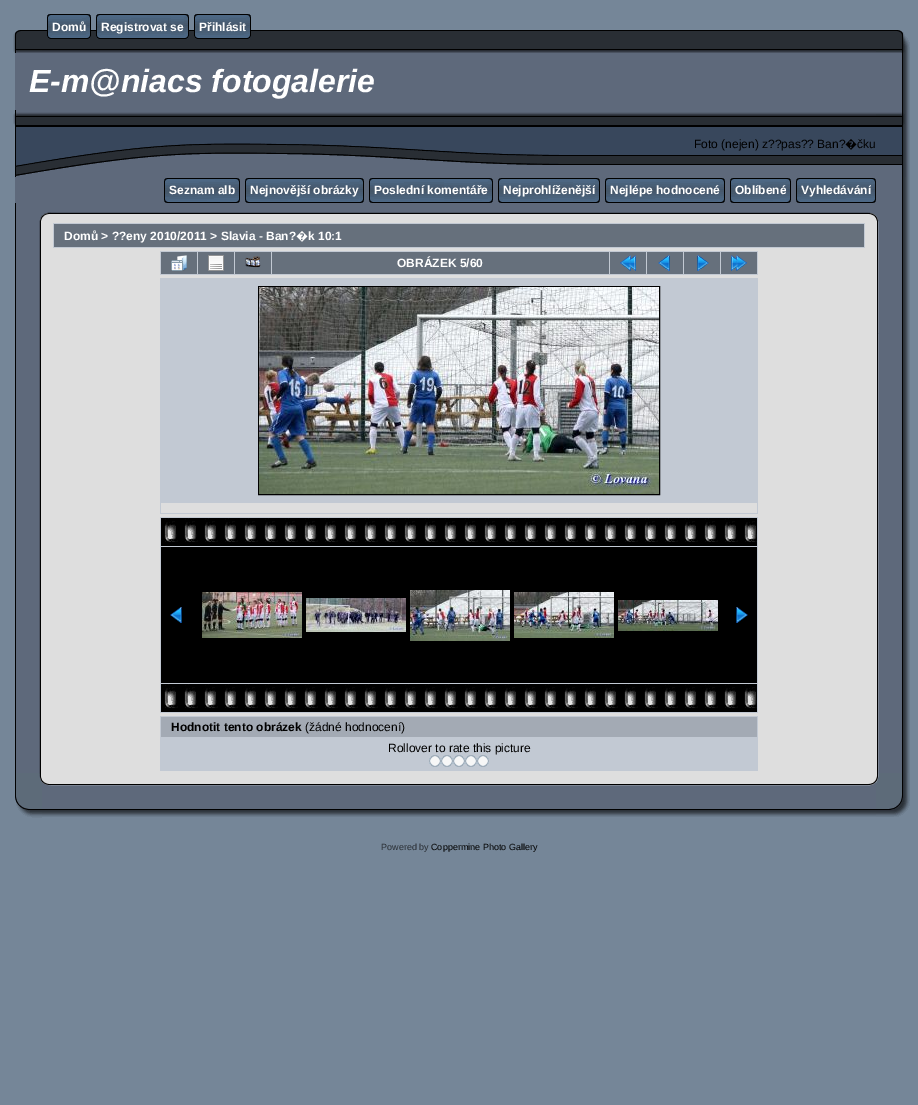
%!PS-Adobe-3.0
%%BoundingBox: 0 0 918 1105
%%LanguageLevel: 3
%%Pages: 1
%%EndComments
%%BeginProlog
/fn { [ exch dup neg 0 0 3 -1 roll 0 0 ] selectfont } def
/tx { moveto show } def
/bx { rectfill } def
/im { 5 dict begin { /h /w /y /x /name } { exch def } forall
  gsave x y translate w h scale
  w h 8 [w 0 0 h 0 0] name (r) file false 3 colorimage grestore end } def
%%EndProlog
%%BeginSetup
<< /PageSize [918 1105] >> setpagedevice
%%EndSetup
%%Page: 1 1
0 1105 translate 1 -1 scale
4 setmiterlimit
0.459 0.525 0.596 setrgbcolor
0 0 918 1105 bx
(image0.raw) 42 30 834 23 im
(image1.raw) 47 14 5 25 im
(image2.raw) 52 14 34 25 im
/LiberationSans-Bold 12 fn
1 setgray
(Domů) 52 31 tx
(image3.raw) 86 14 5 25 im
(image1.raw) 96 14 5 25 im
(image4.raw) 101 14 83 25 im
(Registrovat se) 101 31 tx
(image3.raw) 184 14 5 25 im
(image1.raw) 194 14 5 25 im
(image5.raw) 199 14 47 25 im
(Přihlásit) 199 31 tx
(image3.raw) 246 14 5 25 im
(image6.raw) 13 30 29 23 im
(image7.raw) 876 30 34 23 im
0.369 0.412 0.482 setrgbcolor
15 53 887 57 bx
(image8.raw) 902 53 8 57 im
/LiberationSans-BoldItalic 32 fn
1 setgray
(E-m@niacs fotogalerie) 29 92 tx
(image9.raw) 13 110 547 67 im
(image10.raw) 560 110 316 67 im
/LiberationSans-Regular 12 fn
0 setgray
(Foto \(nejen\) z??pas?? Ban?) 694 148 tx
/NotoSans-Regular 12 fn
(�) 845 148 tx
/LiberationSans-Regular 12 fn
(čku) 857 148 tx
(image11.raw) 876 110 34 67 im
0.369 0.412 0.482 setrgbcolor
15 177 861 26 bx
(image12.raw) 876 177 34 26 im
(image13.raw) 164 178 5 25 im
(image14.raw) 169 178 66 25 im
/LiberationSans-Bold 12 fn
1 setgray
(Seznam alb) 169 194 tx
(image15.raw) 235 178 5 25 im
(image13.raw) 245 178 5 25 im
(image16.raw) 250 178 109 25 im
(Nejnovější obrázky) 250 194 tx
(image15.raw) 359 178 5 25 im
(image13.raw) 369 178 5 25 im
(image17.raw) 374 178 114 25 im
(Poslední komentáře) 374 194 tx
(image15.raw) 488 178 5 25 im
(image13.raw) 498 178 5 25 im
(image18.raw) 503 178 92 25 im
(Nejprohlíženější) 503 194 tx
(image15.raw) 595 178 5 25 im
(image13.raw) 605 178 5 25 im
(image19.raw) 610 178 110 25 im
(Nejlépe hodnocené) 610 194 tx
(image15.raw) 720 178 5 25 im
(image13.raw) 730 178 5 25 im
(image20.raw) 735 178 51 25 im
(Oblíbené) 735 194 tx
(image15.raw) 786 178 5 25 im
(image13.raw) 796 178 5 25 im
(image21.raw) 801 178 70 25 im
(Vyhledávání) 801 194 tx
(image15.raw) 871 178 5 25 im
(image22.raw) 15 203 27 18 im
(image23.raw) 42 203 14 18 im
(image24.raw) 56 203 806 18 im
(image25.raw) 862 203 14 18 im
(image26.raw) 876 203 34 18 im
(image27.raw) 15 221 27 552 im
0.871 setgray
42 221 834 552 bx
0.761 0.788 0.827 setrgbcolor
53 223 812 25 bx
0.4 0.439 0.486 setrgbcolor
54 224 810 23 bx
1 setgray
(Domů > ??eny 2010/2011 > Slavia - Ban?) 64 240 tx
/NotoSans-Bold 12 fn
(�) 296 240 tx
/LiberationSans-Bold 12 fn
(k 10:1) 308 240 tx
0.761 0.788 0.827 setrgbcolor
160 251 598 24 bx
0.4 0.439 0.486 setrgbcolor
161 252 36 22 bx
(image28.raw) 171 255 16 16 im
198 252 36 22 bx
(image29.raw) 208 255 16 16 im
235 252 36 22 bx
(image30.raw) 245 256 16 12 im
272 252 337 22 bx
1 setgray
(OBRÁZEK 5/60) 397 267 tx
0.4 0.439 0.486 setrgbcolor
610 252 36 22 bx
(image31.raw) 620 255 16 16 im
647 252 36 22 bx
(image32.raw) 658 255 12 16 im
684 252 36 22 bx
(image33.raw) 697 255 12 16 im
721 252 36 22 bx
(image34.raw) 731 255 16 16 im
0.761 0.788 0.827 setrgbcolor
160 278 598 236 bx
0 setgray
258.5 286.5 401 208 rectstroke
(image35.raw) 259 287 400 207 im
0.871 setgray
161 503 596 10 bx
0.761 0.788 0.827 setrgbcolor
160 517 598 196 bx
0 setgray
161 518 596 28 bx
(image36.raw) 164 518 593 24 im
161 547 596 136 bx
(image37.raw) 170 607 12 16 im
(image38.raw) 202 592 100 46 im
(image39.raw) 306 598 100 34 im
(image40.raw) 410 590 100 51 im
(image41.raw) 514 592 100 46 im
(image42.raw) 618 600 100 31 im
(image43.raw) 736 607 12 16 im
161 684 596 28 bx
(image36.raw) 164 684 593 24 im
0.761 0.788 0.827 setrgbcolor
160 716 598 55 bx
0.639 0.667 0.706 setrgbcolor
161 717 596 20 bx
0 setgray
(Hodnotit tento obrázek) 171 731 tx
/LiberationSans-Regular 12 fn
(\(žádné hodnocení\)) 305 731 tx
(Rollover to rate this picture) 388 752 tx
(image44.raw) 429 755 12 12 im
(image44.raw) 441 755 12 12 im
(image44.raw) 453 755 12 12 im
(image44.raw) 465 755 12 12 im
(image44.raw) 477 755 12 12 im
(image45.raw) 876 221 34 552 im
(image46.raw) 878 333 1 217 im
(image47.raw) 15 773 27 45 im
(image48.raw) 42 773 208 44 im
(image49.raw) 250 773 418 44 im
(image50.raw) 668 773 208 44 im
(image51.raw) 876 773 34 44 im
/LiberationSans-Regular 9 fn
0.161 0.18 0.204 setrgbcolor
(Powered by) 381 850 tx
0 setgray
(Coppermine Photo Gallery) 431 850 tx
showpage
%%EOF
